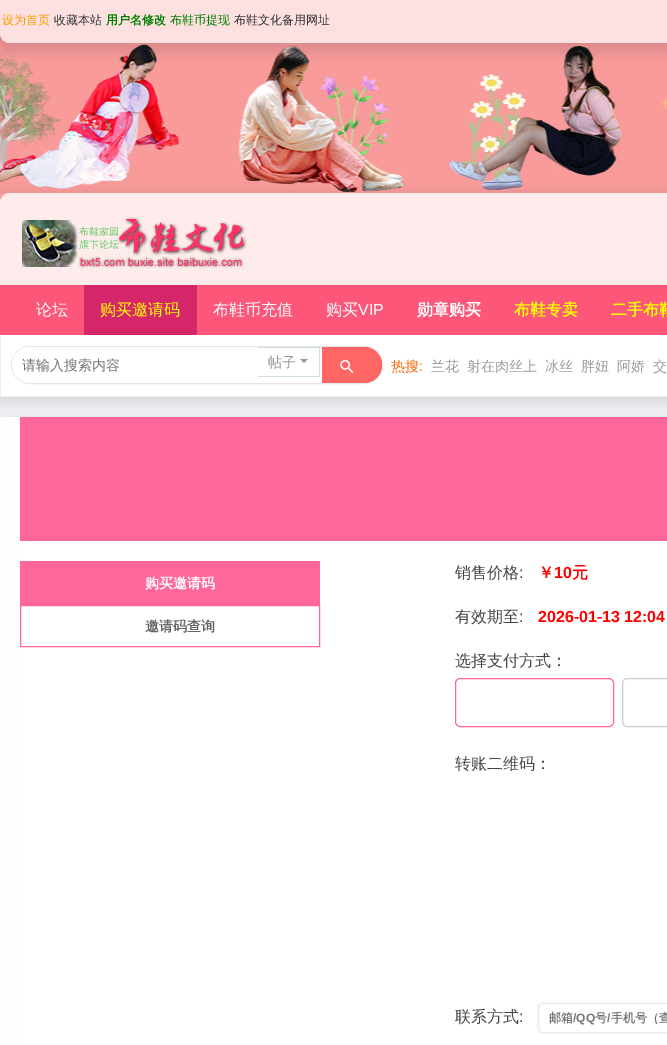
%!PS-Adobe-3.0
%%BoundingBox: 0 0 667 1045
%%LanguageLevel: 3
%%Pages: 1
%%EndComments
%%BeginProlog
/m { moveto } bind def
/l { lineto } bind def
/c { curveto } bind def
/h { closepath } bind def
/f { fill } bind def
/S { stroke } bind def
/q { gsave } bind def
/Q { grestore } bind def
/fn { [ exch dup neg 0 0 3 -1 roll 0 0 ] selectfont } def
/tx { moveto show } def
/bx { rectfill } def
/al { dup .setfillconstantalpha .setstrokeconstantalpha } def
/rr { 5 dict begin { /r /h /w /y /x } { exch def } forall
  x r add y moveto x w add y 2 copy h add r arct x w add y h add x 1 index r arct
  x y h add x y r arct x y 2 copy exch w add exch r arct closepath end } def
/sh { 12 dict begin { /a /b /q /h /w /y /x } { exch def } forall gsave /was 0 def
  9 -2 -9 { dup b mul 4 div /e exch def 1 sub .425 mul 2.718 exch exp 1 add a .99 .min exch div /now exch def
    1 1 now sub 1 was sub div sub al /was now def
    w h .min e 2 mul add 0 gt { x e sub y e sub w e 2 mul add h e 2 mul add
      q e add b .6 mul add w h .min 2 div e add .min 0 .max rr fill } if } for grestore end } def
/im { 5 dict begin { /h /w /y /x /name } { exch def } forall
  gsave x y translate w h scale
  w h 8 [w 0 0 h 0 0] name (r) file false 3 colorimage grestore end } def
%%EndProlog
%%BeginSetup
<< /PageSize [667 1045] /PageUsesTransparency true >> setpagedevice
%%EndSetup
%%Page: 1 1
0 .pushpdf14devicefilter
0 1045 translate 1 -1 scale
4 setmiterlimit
0.961 0.969 0.98 setrgbcolor
0 0 667 1045 bx
(image0.raw) 0 0 667 203 im
q
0 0 m 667 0 l 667 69 l 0 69 l h 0 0 m 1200 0 l 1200 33 l 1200 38.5 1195.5 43 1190 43 c 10 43 l 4.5 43 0 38.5 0 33 c h eoclip newpath
0 setgray
-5 0 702 53 15 5 0.1 sh
Q
0.7 al
1 setgray
0 0 m 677 0 l 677 33 l 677 38.5 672.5 43 667 43 c 10 43 l 4.5 43 0 38.5 0 33 c h f
/WenQuanYiZenHei-Medium 12 fn
1 al
1 0.6 0 setrgbcolor
(设为首页) 2 24 tx
0.2 setgray
(收藏本站) 54 24 tx
/WenQuanYiZenHei-Bold 12 fn
0 0.502 0 setrgbcolor
(用户名修改) 106 24 tx
/WenQuanYiZenHei-Medium 12 fn
(布鞋币提现) 170 24 tx
0.2 setgray
(布鞋文化备用网址) 234 24 tx
q
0 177 m 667 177 l 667 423 l 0 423 l h 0 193 m 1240 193 l 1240 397 l 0 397 l h eoclip newpath
0 setgray
-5 193 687 214 0 5 0.1 sh
Q
0.996 0.922 0.922 setrgbcolor
10 193 m 667 193 l 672.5 193 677 197.5 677 203 c 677 285 l 0 285 l 0 203 l 0 197.5 4.5 193 10 193 c h f
(image1.raw) 22 217 225 51 im
0.988 0.337 0.475 setrgbcolor
0 285 667 50 bx
/WenQuanYiZenHei-Medium 16 fn
1 setgray
(论坛) 36 315 tx
0.831 0.149 0.408 setrgbcolor
84 285 113 50 bx
1 1 0 setrgbcolor
(购买邀请码) 100 315 tx
1 setgray
(布鞋币充值) 213 315 tx
(购买) 326 315 tx
/LiberationSans-Regular 16 fn
(VIP) 358 315 tx
/WenQuanYiZenHei-Bold 16 fn
(勋章购买) 417 315 tx
1 1 0 setrgbcolor
(布鞋专卖) 514 315 tx
(二手布鞋) 611 315 tx
1 setgray
1 335 666 61 bx
0.933 setgray
0 396 667 1 bx
0 335 1 62 bx
0.902 setgray
11.5 346.5 371 37 18.5 rr S
1 setgray
30 347 m 260 347 l 260 383 l 30 383 l 20 383 12 375 12 365 c 12 355 20 347 30 347 c h f
/WenQuanYiZenHei-Medium 14 fn
0.459 setgray
(请输入搜索内容) 22 370 tx
0.812 0.871 0.89 setrgbcolor
258 347 62 1 bx
319 347 1 30 bx
258 376 62 1 bx
0.6 setgray
(帖子) 268 367 tx
300 359 m 308 359 l 304 363 l h f
0.988 0.337 0.475 setrgbcolor
322 347 m 364 347 l 374 347 382 355 382 365 c 382 375 374 383 364 383 c 322 383 l h f
1 0.4 0.4 setrgbcolor
325 347 m 364 347 l 374 347 382 355 382 365 c 382 375 374 383 364 383 c 322 383 l 322 350 l 322 348.5 323.5 347 325 347 c h f
(image2.raw) 340 360 14 13 im
1 0.4 0 setrgbcolor
(热搜) 391 371 tx
/LiberationSans-Regular 14 fn
(:) 419 371 tx
/WenQuanYiZenHei-Medium 14 fn
0.6 setgray
(兰花) 431 371 tx
(射在肉丝上) 467 371 tx
(冰丝) 545 371 tx
(胖妞) 581 371 tx
(阿娇) 617 371 tx
(交) 653 371 tx
0 setgray
-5 417 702 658 15 5 0.1 sh
0.992 0.996 0.996 setrgbcolor
0 417 20 628 bx
1 setgray
20 541 647 504 bx
1 0.4 0.6 setrgbcolor
20 417 647 124 bx
20 561 300 44 bx
/WenQuanYiZenHei-Bold 14 fn
1 setgray
(购买邀请码) 145 588 tx
1 0.4 0.6 setrgbcolor
20.5 605.5 299 41 rectstroke
0.4 setgray
(邀请码查询) 145 631 tx
/WenQuanYiZenHei-Medium 16 fn
0.267 setgray
(销售价格) 455 578 tx
/LiberationSans-Regular 16 fn
(:) 519 578 tx
/WenQuanYiZenHei-Bold 16 fn
1 0 0 setrgbcolor
(￥) 538 578 tx
/LiberationSans-Bold 16 fn
(10) 554 578 tx
/WenQuanYiZenHei-Bold 16 fn
(元) 572 578 tx
/WenQuanYiZenHei-Medium 16 fn
0.267 setgray
(有效期至) 455 622 tx
/LiberationSans-Regular 16 fn
(:) 519 622 tx
/LiberationSans-Bold 16 fn
1 0 0 setrgbcolor
(2026-01-13 12:04) 538 622 tx
/WenQuanYiZenHei-Medium 16 fn
0.267 setgray
(选择支付方式：) 455 666 tx
1 0.4 0.6 setrgbcolor
455.5 678.5 158 48 4.5 rr S
0.8 setgray
622.5 678.5 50 48 4.5 rr S
0.267 setgray
(转账二维码：) 455 769 tx
(联系方式) 455 1022 tx
/LiberationSans-Regular 16 fn
(:) 519 1022 tx
0.235 0.282 0.345 setrgbcolor
538 1003 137 30 5 1 0.15 sh
1 setgray
538.5 1003.5 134 29 4.5 rr q f Q
0.914 0.925 0.937 setrgbcolor
S
/WenQuanYiZenHei-Bold 12 fn
0.459 setgray
(邮箱) 549 1022 tx
/LiberationSans-Bold 12 fn
(/QQ) 573 1022 tx
/WenQuanYiZenHei-Bold 12 fn
(号 手机号（查) 595 1022 tx
/LiberationSans-Bold 12 fn
(/) 607 1022 tx
.poppdf14devicefilter showpage
%%EOF
